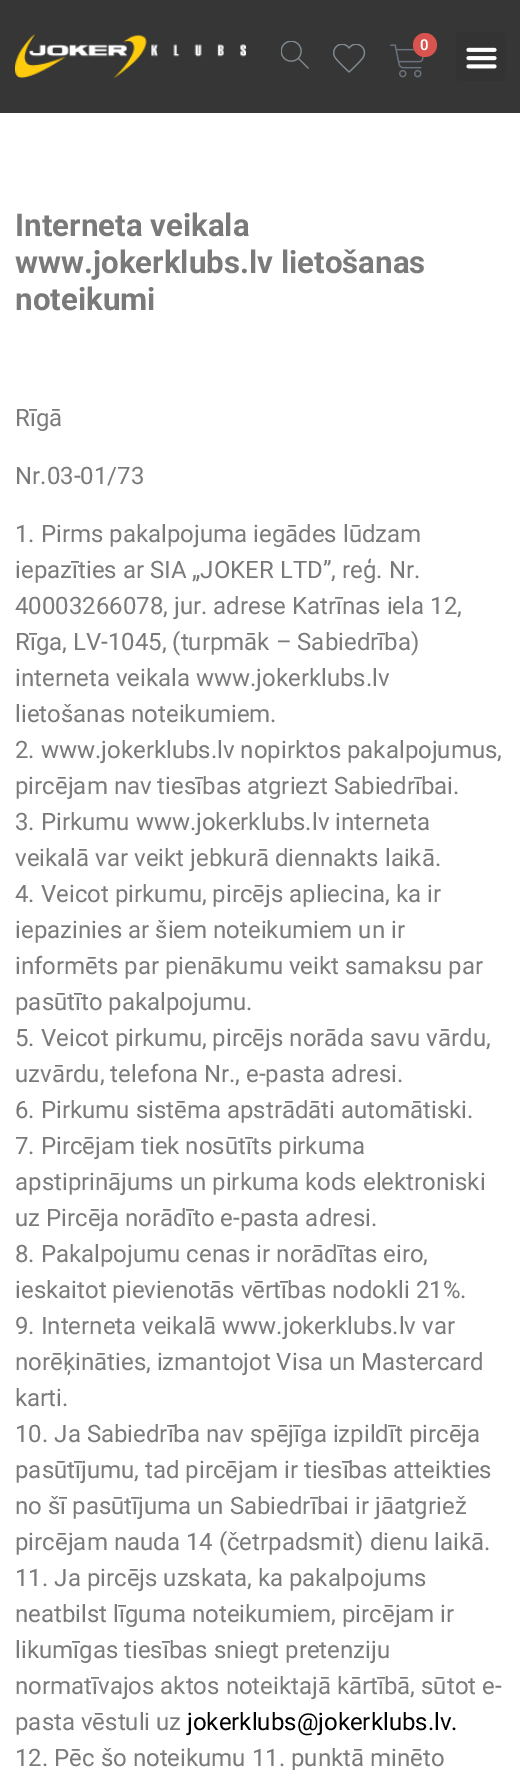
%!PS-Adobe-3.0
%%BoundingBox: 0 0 520 1770
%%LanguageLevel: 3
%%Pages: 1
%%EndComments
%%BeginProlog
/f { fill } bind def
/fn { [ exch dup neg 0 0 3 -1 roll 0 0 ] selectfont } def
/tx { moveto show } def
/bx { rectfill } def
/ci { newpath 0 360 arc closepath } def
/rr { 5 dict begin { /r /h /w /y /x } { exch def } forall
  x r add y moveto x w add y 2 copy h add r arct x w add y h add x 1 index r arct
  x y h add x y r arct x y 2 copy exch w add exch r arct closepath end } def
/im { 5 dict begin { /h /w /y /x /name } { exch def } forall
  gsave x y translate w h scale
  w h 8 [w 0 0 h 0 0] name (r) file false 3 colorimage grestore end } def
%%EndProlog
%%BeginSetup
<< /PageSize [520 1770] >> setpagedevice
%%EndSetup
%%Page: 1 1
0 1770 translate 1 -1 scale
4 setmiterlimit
1 setgray
0 0 520 1770 bx
0.212 setgray
0 0 520 113 bx
(image0.raw) 15 34 231 44 im
(image1.raw) 281 41 28 28 im
(image2.raw) 333 44 33 29 im
(image3.raw) 390 44 34 34 im
0.851 0.325 0.31 setrgbcolor
425 45 12 ci f
/Roboto-SemiBold 15 fn
1 setgray
(0) 420 50 tx
0.2 setgray
456 32 50 49 5 rr f
(image4.raw) 466 47 31 22 im
/Roboto-Bold 31.25 fn
0.478 setgray
(Interneta veikala) 15 236 tx
(www.jokerklubs.lv lietošanas) 15 273 tx
(noteikumi) 15 310 tx
/Roboto-Regular 24 fn
(Rīgā) 15 426 tx
(Nr.03-01/73) 15 484 tx
(1. Pirms pakalpojuma iegādes lūdzam) 15 542 tx
(iepazīties ar SIA „JOKER LTD”, reģ. Nr.) 15 578 tx
(40003266078, jur. adrese Katrīnas iela 12,) 15 614 tx
(Rīga, LV-1045, \(turpmāk – Sabiedrība\)) 15 650 tx
(interneta veikala www.jokerklubs.lv) 15 686 tx
(lietošanas noteikumiem.) 15 722 tx
(2. www.jokerklubs.lv nopirktos pakalpojumus,) 15 758 tx
(pircējam nav tiesības atgriezt Sabiedrībai.) 15 794 tx
(3. Pirkumu www.jokerklubs.lv interneta) 15 830 tx
(veikalā var veikt jebkurā diennakts laikā.) 15 866 tx
(4. Veicot pirkumu, pircējs apliecina, ka ir) 15 902 tx
(iepazinies ar šiem noteikumiem un ir) 15 938 tx
(informēts par pienākumu veikt samaksu par) 15 974 tx
(pasūtīto pakalpojumu.) 15 1010 tx
(5. Veicot pirkumu, pircējs norāda savu vārdu,) 15 1046 tx
(uzvārdu, telefona Nr., e-pasta adresi.) 15 1082 tx
(6. Pirkumu sistēma apstrādāti automātiski.) 15 1118 tx
(7. Pircējam tiek nosūtīts pirkuma) 15 1154 tx
(apstiprinājums un pirkuma kods elektroniski) 15 1190 tx
(uz Pircēja norādīto e-pasta adresi.) 15 1226 tx
(8. Pakalpojumu cenas ir norādītas eiro,) 15 1262 tx
(ieskaitot pievienotās vērtības nodokli 21%.) 15 1298 tx
(9. Interneta veikalā www.jokerklubs.lv var) 15 1334 tx
(norēķināties, izmantojot Visa un Mastercard) 15 1370 tx
(karti.) 15 1406 tx
(10. Ja Sabiedrība nav spējīga izpildīt pircēja) 15 1442 tx
(pasūtījumu, tad pircējam ir tiesības atteikties) 15 1478 tx
(no šī pasūtījuma un Sabiedrībai ir jāatgriež) 15 1514 tx
(pircējam nauda 14 \(četrpadsmit\) dienu laikā.) 15 1550 tx
(11. Ja pircējs uzskata, ka pakalpojums) 15 1586 tx
(neatbilst līguma noteikumiem, pircējam ir) 15 1622 tx
(likumīgas tiesības sniegt pretenziju) 15 1658 tx
(normatīvajos aktos noteiktajā kārtībā, sūtot e-) 15 1694 tx
(pasta vēstuli uz) 15 1730 tx
0 setgray
(jokerklubs@jokerklubs.lv.) 187 1730 tx
0.478 setgray
(12. Pēc šo noteikumu 11. punktā minēto) 15 1766 tx
showpage
%%EOF
